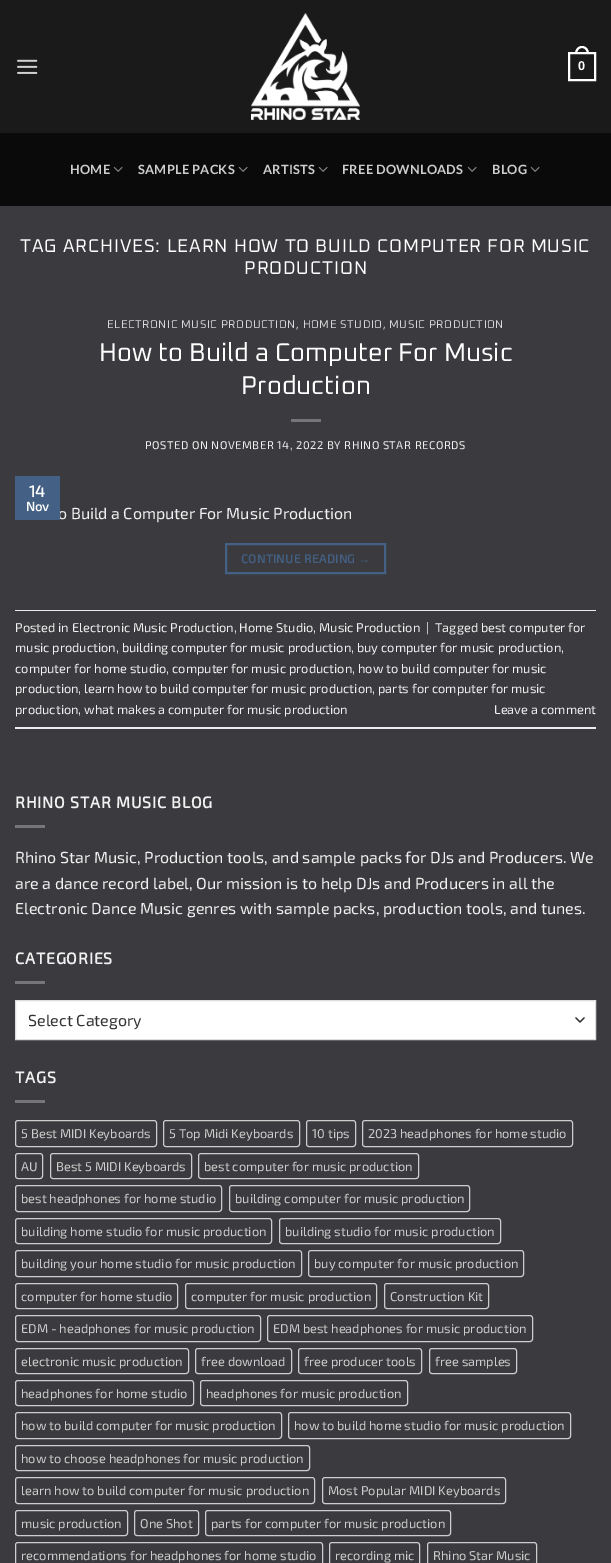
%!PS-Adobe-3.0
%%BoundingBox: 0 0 611 1563
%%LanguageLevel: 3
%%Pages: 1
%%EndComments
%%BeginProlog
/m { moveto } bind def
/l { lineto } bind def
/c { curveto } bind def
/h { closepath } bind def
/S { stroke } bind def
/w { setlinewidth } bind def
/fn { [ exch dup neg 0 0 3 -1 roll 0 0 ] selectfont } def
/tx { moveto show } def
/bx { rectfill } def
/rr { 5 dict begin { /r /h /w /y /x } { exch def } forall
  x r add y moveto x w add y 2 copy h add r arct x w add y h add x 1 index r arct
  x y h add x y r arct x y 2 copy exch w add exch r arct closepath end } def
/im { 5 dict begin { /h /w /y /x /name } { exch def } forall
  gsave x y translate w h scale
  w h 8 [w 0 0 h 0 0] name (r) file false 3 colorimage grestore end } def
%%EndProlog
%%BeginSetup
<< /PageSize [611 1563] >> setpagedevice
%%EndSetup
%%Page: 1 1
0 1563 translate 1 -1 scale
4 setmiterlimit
0.231 0.231 0.247 setrgbcolor
0 0 611 1563 bx
0.102 setgray
0 0 611 133 bx
(image0.raw) 17 59 21 15 im
(image1.raw) 251 13 109 107 im
1 setgray
2 w
569 53 26 27 rectstroke
582 46 m 586.5 46 589 50 589 54 c 575 54 l 575 50 577.5 46 582 46 c h 582 48 m 585.5 48 587 51 587 54 c 577 54 l 577 51 578.5 48 582 48 c h eofill
/LiberationSans-Bold 12.8 fn
(0) 578 70 tx
0.039 setgray
0 133 611 73 bx
/Lato-Bold 12.8 fn
0.804 setgray
70 174 m 0.25 0 (HOME) ashow
(image2.raw) 113 166 10 6 im
138 174 m 0.25 0 (SAMPLE PACKS) ashow
(image2.raw) 238 166 10 6 im
263 174 m 0.25 0 (ARTISTS) ashow
(image2.raw) 318 166 10 6 im
342 174 m 0.25 0 (FREE DOWNLOADS) ashow
(image2.raw) 467 166 10 6 im
492 174 m 0.25 0 (BLOG) ashow
(image2.raw) 530 166 10 6 im
/Oxanium-ExtraLight 18.4 fn
1 setgray
20 252 m 0.92 0 (TAG ARCHIVES: LEARN HOW TO BUILD COMPUTER FOR MUSIC) ashow
244 274 m 0.92 0 (PRODUCTION) ashow
/Oxanium-ExtraLight 11.2 fn
0.847 0.847 0.851 setrgbcolor
107 328 m 0.55 0 (ELECTRONIC MUSIC PRODUCTION, HOME STUDIO, MUSIC PRODUCTION) ashow
/Oxanium-ExtraLight 25.6 fn
1 setgray
(How to Build a Computer For Music) 99 361 tx
(Production) 241 394 tx
0.463 0.463 0.475 setrgbcolor
291 419 30 3 bx
/Exo2-Regular 11.2 fn
0.945 setgray
145 449 m 0.55 0 (POSTED ON NOVEMBER 14, 2022 BY RHINO STAR RECORDS) ashow
/Exo2-Regular 16 fn
(o Build a Computer For Music Production) 58 519 tx
0.267 0.376 0.518 setrgbcolor
15 476 45 44 bx
/Exo2-Bold 16 fn
1 setgray
(14) 29 497 tx
/Exo2-Bold 12.8 fn
(Nov) 26 511 tx
0.267 0.376 0.518 setrgbcolor
226 544 159 29 rectstroke
/Exo2-Bold 12 fn
241 563 m 0.4 0 (CONTINUE READING) ashow
/LiberationSans-Bold 12 fn
358 563 m 0.4 0 (→) ashow
0.925 setgray
15 610 581 1 bx
15 727 581 2 bx
/Exo2-Regular 12.8 fn
0.945 setgray
(Posted in Electronic Music Production, Home Studio, Music Production) 15 632 tx
(|) 426 632 tx
(Tagged best computer for) 435 632 tx
(music production, building computer for music production, buy computer for music production,) 15 652 tx
(computer for home studio, computer for music production, how to build computer for music) 15 673 tx
(production, learn how to build computer for music production, parts for computer for music) 15 693 tx
(production, what makes a computer for music production) 15 714 tx
(Leave a comment) 494 714 tx
/Exo2-Bold 16 fn
15 808 m 0.8 0 (RHINO STAR MUSIC BLOG) ashow
0.463 0.463 0.475 setrgbcolor
15 825 30 3 bx
/Exo2-Regular 16 fn
0.945 setgray
(Rhino Star Music, Production tools, and sample packs for DJs and Producers. We) 15 863 tx
(are a dance record label, Our mission is to help DJs and Producers in all the) 15 889 tx
(Electronic Dance Music genres with sample packs, production tools, and tunes.) 15 914 tx
/Exo2-Bold 16 fn
15 964 m 0.8 0 (CATEGORIES) ashow
0.463 0.463 0.475 setrgbcolor
15 981 30 3 bx
1 setgray
16 1001 579 38 bx
0.2 setgray
1.3 w
1 setlinecap
1 setlinejoin
576 1018 m 580 1022 l 584 1018 l S
0.867 setgray
1 w
0 setlinecap
0 setlinejoin
15.5 1000.5 580 39 rectstroke
/Exo2-Regular 16 fn
0.2 setgray
(Select Category) 28 1026 tx
/Exo2-Bold 16 fn
0.945 setgray
15 1083 m 0.8 0 (TAGS) ashow
0.463 0.463 0.475 setrgbcolor
15 1100 30 3 bx
0.804 setgray
15.5 1120.5 141 26 2.5 rr S
/Exo2-Regular 12.8 fn
(5 Best MIDI Keyboards) 21 1138 tx
163.5 1120.5 136 26 2.5 rr S
(5 Top Midi Keyboards) 169 1138 tx
306.5 1120.5 49 26 2.5 rr S
(10 tips) 312 1138 tx
362.5 1120.5 210 26 2.5 rr S
(2023 headphones for home studio) 368 1138 tx
15.5 1153.5 27 25 2.5 rr S
(AU) 21 1171 tx
50.5 1153.5 141 25 2.5 rr S
(Best 5 MIDI Keyboards) 56 1171 tx
198.5 1153.5 220 25 2.5 rr S
(best computer for music production) 204 1171 tx
15.5 1185.5 206 26 2.5 rr S
(best headphones for home studio) 21 1203 tx
229.5 1185.5 240 26 2.5 rr S
(building computer for music production) 235 1203 tx
15.5 1218.5 256 25 2.5 rr S
(building home studio for music production) 21 1236 tx
279.5 1218.5 221 25 2.5 rr S
(building studio for music production) 285 1236 tx
15.5 1250.5 286 26 2.5 rr S
(building your home studio for music production) 21 1268 tx
308.5 1250.5 215 26 2.5 rr S
(buy computer for music production) 314 1268 tx
15.5 1283.5 162 25 2.5 rr S
(computer for home studio) 21 1301 tx
185.5 1283.5 191 25 2.5 rr S
(computer for music production) 191 1301 tx
384.5 1283.5 104 25 2.5 rr S
(Construction Kit) 390 1301 tx
15.5 1315.5 245 26 2.5 rr S
(EDM - headphones for music production) 21 1333 tx
267.5 1315.5 265 26 2.5 rr S
(EDM best headphones for music production) 273 1333 tx
15.5 1348.5 173 25 2.5 rr S
(electronic music production) 21 1366 tx
195.5 1348.5 96 25 2.5 rr S
(free download) 201 1366 tx
298.5 1348.5 123 25 2.5 rr S
(free producer tools) 304 1366 tx
429.5 1348.5 87 25 2.5 rr S
(free samples) 435 1366 tx
15.5 1380.5 178 25 2.5 rr S
(headphones for home studio) 21 1398 tx
200.5 1380.5 207 25 2.5 rr S
(headphones for music production) 206 1398 tx
15.5 1412.5 266 26 2.5 rr S
(how to build computer for music production) 21 1430 tx
288.5 1412.5 282 26 2.5 rr S
(how to build home studio for music production) 294 1430 tx
15.5 1445.5 294 25 2.5 rr S
(how to choose headphones for music production) 21 1463 tx
15.5 1477.5 299 26 2.5 rr S
(learn how to build computer for music production) 21 1495 tx
322.5 1477.5 183 26 2.5 rr S
(Most Popular MIDI Keyboards) 328 1495 tx
15.5 1510.5 112 25 2.5 rr S
(music production) 21 1528 tx
134.5 1510.5 64 25 2.5 rr S
(One Shot) 140 1528 tx
205.5 1510.5 245 25 2.5 rr S
(parts for computer for music production) 211 1528 tx
15.5 1542.5 307 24 2.5 rr S
(recommendations for headphones for home studio) 21 1560 tx
329.5 1542.5 90 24 2.5 rr S
(recording mic) 335 1560 tx
427.5 1542.5 109 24 2.5 rr S
(Rhino Star Music) 433 1560 tx
showpage
%%EOF
